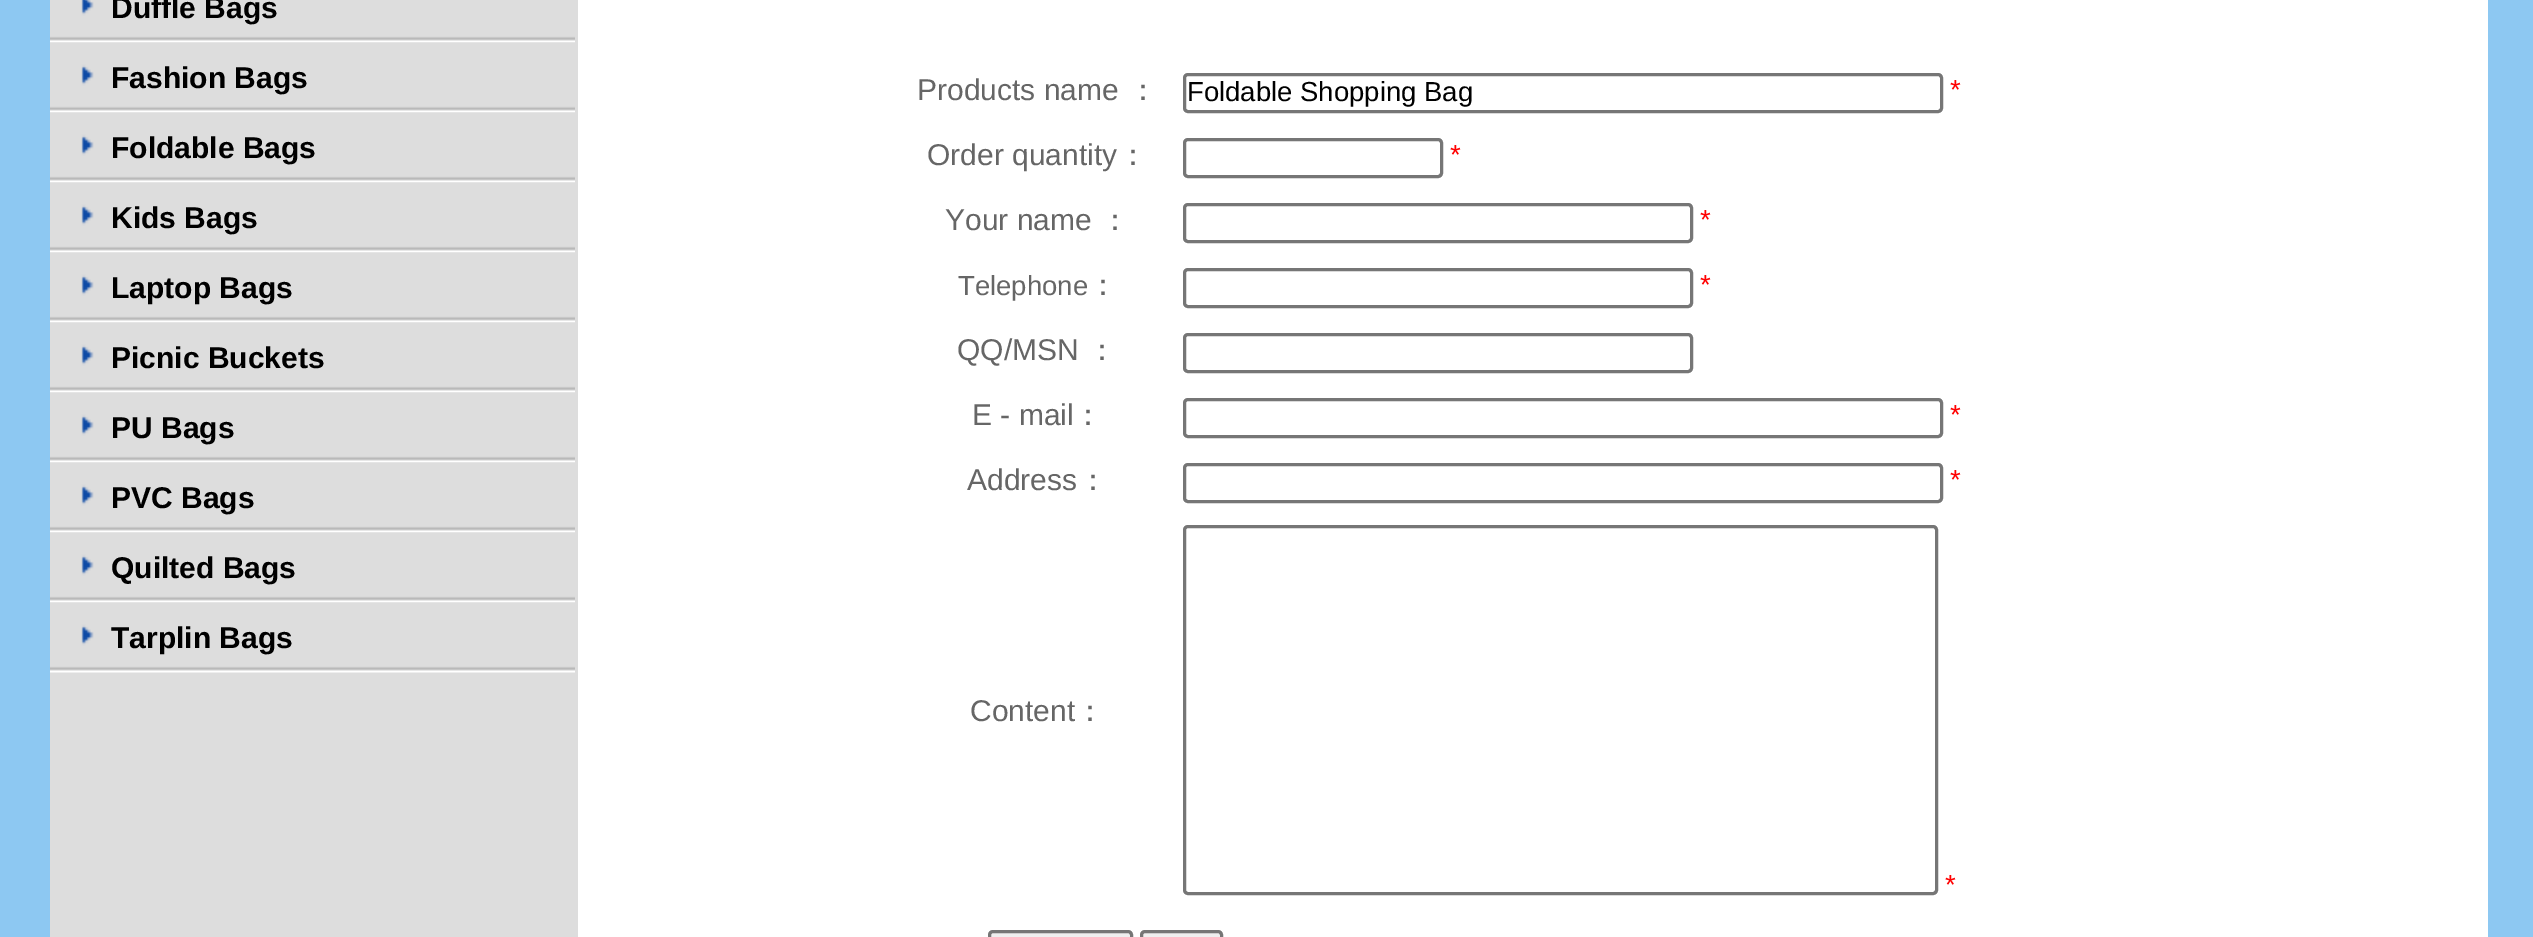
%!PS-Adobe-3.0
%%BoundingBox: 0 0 2533 937
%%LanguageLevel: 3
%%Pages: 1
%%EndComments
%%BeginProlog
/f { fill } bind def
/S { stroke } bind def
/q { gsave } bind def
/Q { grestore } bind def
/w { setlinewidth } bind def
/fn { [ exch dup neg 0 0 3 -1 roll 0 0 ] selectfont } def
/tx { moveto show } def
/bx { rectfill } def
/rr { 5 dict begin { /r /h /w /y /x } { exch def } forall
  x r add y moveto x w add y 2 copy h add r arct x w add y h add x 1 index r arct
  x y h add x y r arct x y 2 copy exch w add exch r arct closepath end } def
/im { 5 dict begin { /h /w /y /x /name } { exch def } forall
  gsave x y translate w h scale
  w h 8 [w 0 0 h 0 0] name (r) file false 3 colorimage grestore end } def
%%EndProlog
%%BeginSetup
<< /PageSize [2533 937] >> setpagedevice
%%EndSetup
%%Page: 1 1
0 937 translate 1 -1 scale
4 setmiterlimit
0.553 0.784 0.949 setrgbcolor
0 0 2533 937 bx
1 setgray
578 0 1910 937 bx
0.867 setgray
50 0 528 937 bx
(image0.raw) 50 0 525 43 im
/LiberationSans-Bold 30 fn
0 setgray
(Duffle Bags) 111 18 tx
(image1.raw) 50 42 525 71 im
(Fashion Bags) 111 88 tx
(image2.raw) 50 112 525 71 im
(Foldable Bags) 111 158 tx
(image2.raw) 50 182 525 71 im
(Kids Bags) 111 228 tx
(image2.raw) 50 252 525 71 im
(Laptop Bags) 111 298 tx
(image2.raw) 50 322 525 71 im
(Picnic Buckets) 111 368 tx
(image2.raw) 50 392 525 71 im
(PU Bags) 111 438 tx
(image2.raw) 50 462 525 71 im
(PVC Bags) 111 508 tx
(image2.raw) 50 532 525 71 im
(Quilted Bags) 111 578 tx
(image2.raw) 50 602 525 71 im
(Tarplin Bags) 111 648 tx
/LiberationSans-Regular 30 fn
0.4 setgray
(Products name) 917 100 tx
/WenQuanYiZenHei-Medium 30 fn
(：) 1128 100 tx
0.463 setgray
3 w
1184.5 74.5 757 37 3.5 rr S
/LiberationSans-Regular 27.5 fn
0 setgray
(Foldable Shopping Bag) 1187 101 tx
1 0 0 setrgbcolor
(*) 1950 99 tx
/LiberationSans-Regular 30 fn
0.4 setgray
(Order quantity) 927 165 tx
/WenQuanYiZenHei-Medium 30 fn
(：) 1118 165 tx
0.463 setgray
1184.5 139.5 257 37 3.5 rr S
/LiberationSans-Regular 27.5 fn
1 0 0 setrgbcolor
(*) 1450 164 tx
/LiberationSans-Regular 30 fn
0.4 setgray
(Your name) 945 230 tx
/WenQuanYiZenHei-Medium 30 fn
(：) 1100 230 tx
0.463 setgray
1184.5 204.5 507 37 3.5 rr S
/LiberationSans-Regular 27.5 fn
1 0 0 setrgbcolor
(*) 1700 229 tx
0.4 setgray
(Telephone) 958 295 tx
/WenQuanYiZenHei-Medium 30 fn
(：) 1088 295 tx
0.463 setgray
1184.5 269.5 507 37 3.5 rr S
/LiberationSans-Regular 27.5 fn
1 0 0 setrgbcolor
(*) 1700 294 tx
/LiberationSans-Regular 30 fn
0.4 setgray
(QQ/MSN) 957 360 tx
/WenQuanYiZenHei-Medium 30 fn
(：) 1087 360 tx
0.463 setgray
1184.5 334.5 507 37 3.5 rr S
/LiberationSans-Regular 30 fn
0.4 setgray
(E - mail) 972 425 tx
/WenQuanYiZenHei-Medium 30 fn
(：) 1073 425 tx
0.463 setgray
1184.5 399.5 757 37 3.5 rr S
/LiberationSans-Regular 27.5 fn
1 0 0 setrgbcolor
(*) 1950 424 tx
/LiberationSans-Regular 30 fn
0.4 setgray
(Address) 967 490 tx
/WenQuanYiZenHei-Medium 30 fn
(：) 1078 490 tx
0.463 setgray
1184.5 464.5 757 37 3.5 rr S
/LiberationSans-Regular 27.5 fn
1 0 0 setrgbcolor
(*) 1950 489 tx
/LiberationSans-Regular 30 fn
0.4 setgray
(Content) 970 721 tx
/WenQuanYiZenHei-Medium 30 fn
(：) 1075 721 tx
0.463 setgray
1184.5 526.5 752 367 3.5 rr S
/LiberationSans-Regular 27.5 fn
1 0 0 setrgbcolor
(*) 1945 894 tx
0.937 setgray
989.5 931.5 142 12 3.5 rr q f Q
0.463 setgray
S
0.937 setgray
1141.5 931.5 80 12 3.5 rr q f Q
0.463 setgray
S
showpage
%%EOF
